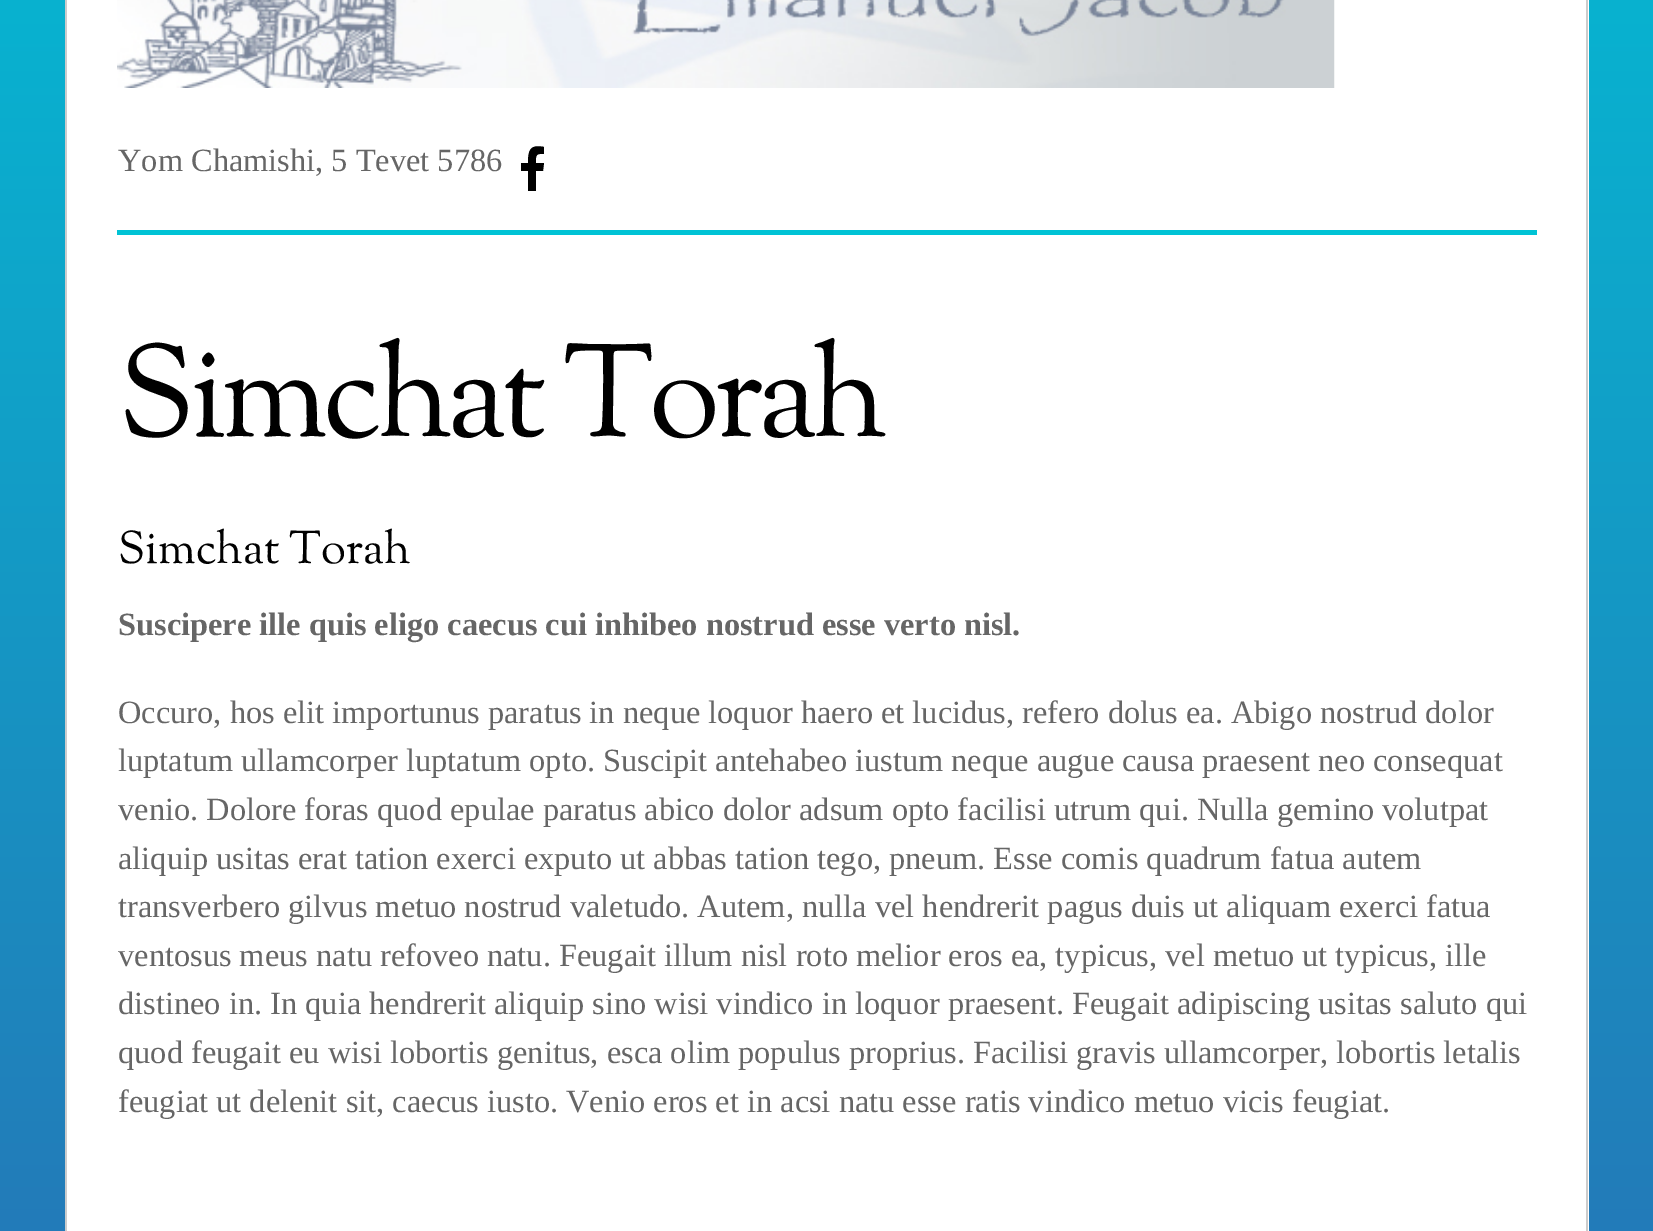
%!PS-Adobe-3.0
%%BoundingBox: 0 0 1653 1231
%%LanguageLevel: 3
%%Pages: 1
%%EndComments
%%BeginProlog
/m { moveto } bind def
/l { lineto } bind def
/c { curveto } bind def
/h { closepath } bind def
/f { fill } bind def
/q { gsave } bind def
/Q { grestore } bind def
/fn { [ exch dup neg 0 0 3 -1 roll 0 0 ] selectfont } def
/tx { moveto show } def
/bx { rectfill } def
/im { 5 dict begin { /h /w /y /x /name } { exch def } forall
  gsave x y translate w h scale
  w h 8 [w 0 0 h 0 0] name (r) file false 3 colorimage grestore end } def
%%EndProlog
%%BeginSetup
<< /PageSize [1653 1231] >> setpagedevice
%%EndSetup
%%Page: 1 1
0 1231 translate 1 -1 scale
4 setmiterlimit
1 setgray
0 0 1653 1231 bx
q 0 0 m 1653 0 l 1653 1231 l 0 1231 l h clip newpath
<< /ShadingType 2 /ColorSpace /DeviceRGB /Coords [827 -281 827 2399] /Extend [true true] /Function << /FunctionType 2 /Domain [0 1] /C0 [0.008 0.749 0.835] /C1 [0.235 0.278 0.639] /N 1 >> >> shfill Q
67 0 1522 1231 bx
0.8 setgray
1586 0 2 1231 bx
65 0 2 1231 bx
0 0.765 0.835 setrgbcolor
117 230 1420 5 bx
(image0.raw) 117 0 1218 88 im
/LiberationSerif-Regular 32.4 fn
0.4 setgray
(Yom Chamishi, 5 Tevet 5786) 118 171 tx
0 setgray
540 154 m 535 154 536 159 536 163 c 544 163 l 543 171 l 536 171 l 536 191 l 528 191 l 528 171 l 521 171 l 521 163 l 528 163 l 528 150 530 144 544 147 c 544 154 l h f
/OFLSortsMillGoudyTT-Medium 129.5 fn
118 436 m -5.25 0 (Simchat Torah) ashow
/OFLSortsMillGoudyTT-Medium 45.5 fn
(Simchat Torah) 118 563 tx
/LiberationSerif-Bold 32.4 fn
0.4 setgray
(Suscipere ille quis eligo caecus cui inhibeo nostrud esse verto nisl.) 118 635 tx
/LiberationSerif-Regular 32.4 fn
(Occuro, hos elit importunus paratus in neque loquor haero et lucidus, refero dolus ea. Abigo nostrud dolor) 118 723 tx
(luptatum ullamcorper luptatum opto. Suscipit antehabeo iustum neque augue causa praesent neo consequat) 118 771 tx
(venio. Dolore foras quod epulae paratus abico dolor adsum opto facilisi utrum qui. Nulla gemino volutpat) 118 820 tx
(aliquip usitas erat tation exerci exputo ut abbas tation tego, pneum. Esse comis quadrum fatua autem) 118 869 tx
(transverbero gilvus metuo nostrud valetudo. Autem, nulla vel hendrerit pagus duis ut aliquam exerci fatua) 118 917 tx
(ventosus meus natu refoveo natu. Feugait illum nisl roto melior eros ea, typicus, vel metuo ut typicus, ille) 118 966 tx
(distineo in. In quia hendrerit aliquip sino wisi vindico in loquor praesent. Feugait adipiscing usitas saluto qui) 118 1014 tx
(quod feugait eu wisi lobortis genitus, esca olim populus proprius. Facilisi gravis ullamcorper, lobortis letalis) 118 1063 tx
(feugiat ut delenit sit, caecus iusto. Venio eros et in acsi natu esse ratis vindico metuo vicis feugiat.) 118 1112 tx
showpage
%%EOF
